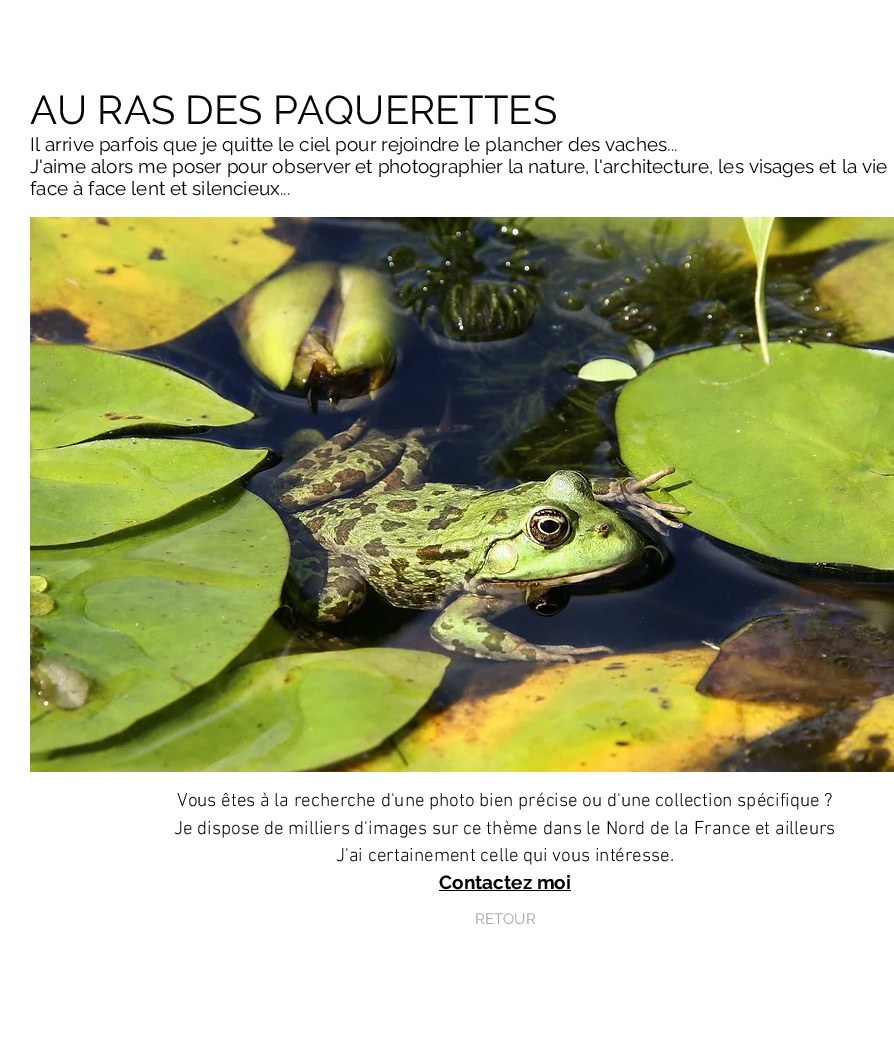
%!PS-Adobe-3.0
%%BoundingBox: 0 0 894 1046
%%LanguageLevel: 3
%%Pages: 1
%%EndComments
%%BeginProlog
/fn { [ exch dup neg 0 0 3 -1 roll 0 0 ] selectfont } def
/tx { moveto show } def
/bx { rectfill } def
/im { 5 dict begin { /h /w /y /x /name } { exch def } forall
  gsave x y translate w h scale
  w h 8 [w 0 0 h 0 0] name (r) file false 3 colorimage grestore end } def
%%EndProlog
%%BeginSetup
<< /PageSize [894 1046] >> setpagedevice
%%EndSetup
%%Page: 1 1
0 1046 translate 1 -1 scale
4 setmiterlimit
1 setgray
0 0 894 1046 bx
/Raleway-Regular 40 fn
0.02 setgray
(AU RAS DES PAQUERETTES) 30 124 tx
/Raleway-Regular 19 fn
(Il arrive parfois que je quitte le ciel pour rejoindre le plancher des vaches...) 30 151 tx
(J'aime alors me poser pour observer et photographier la nature, l'architecture, les visages et la vie) 30 173 tx
(face à face lent et silencieux...) 30 195 tx
(image0.raw) 30 217 864 555 im
/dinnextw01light-Light 19 fn
(Vous êtes à la recherche d'une photo bien précise ou d'une collection spécifique ?) 177 806 tx
(Je dispose de milliers d'images sur ce thème dans le Nord de la France et ailleurs) 174 834 tx
(J'ai certainement celle qui vous intéresse.) 336 861 tx
/Raleway-Bold 19 fn
(Contactez moi) 439 889 tx
439 890 132 1 bx
/Raleway-Regular 15 fn
0.655 setgray
(RETOUR) 475 924 tx
showpage
%%EOF
